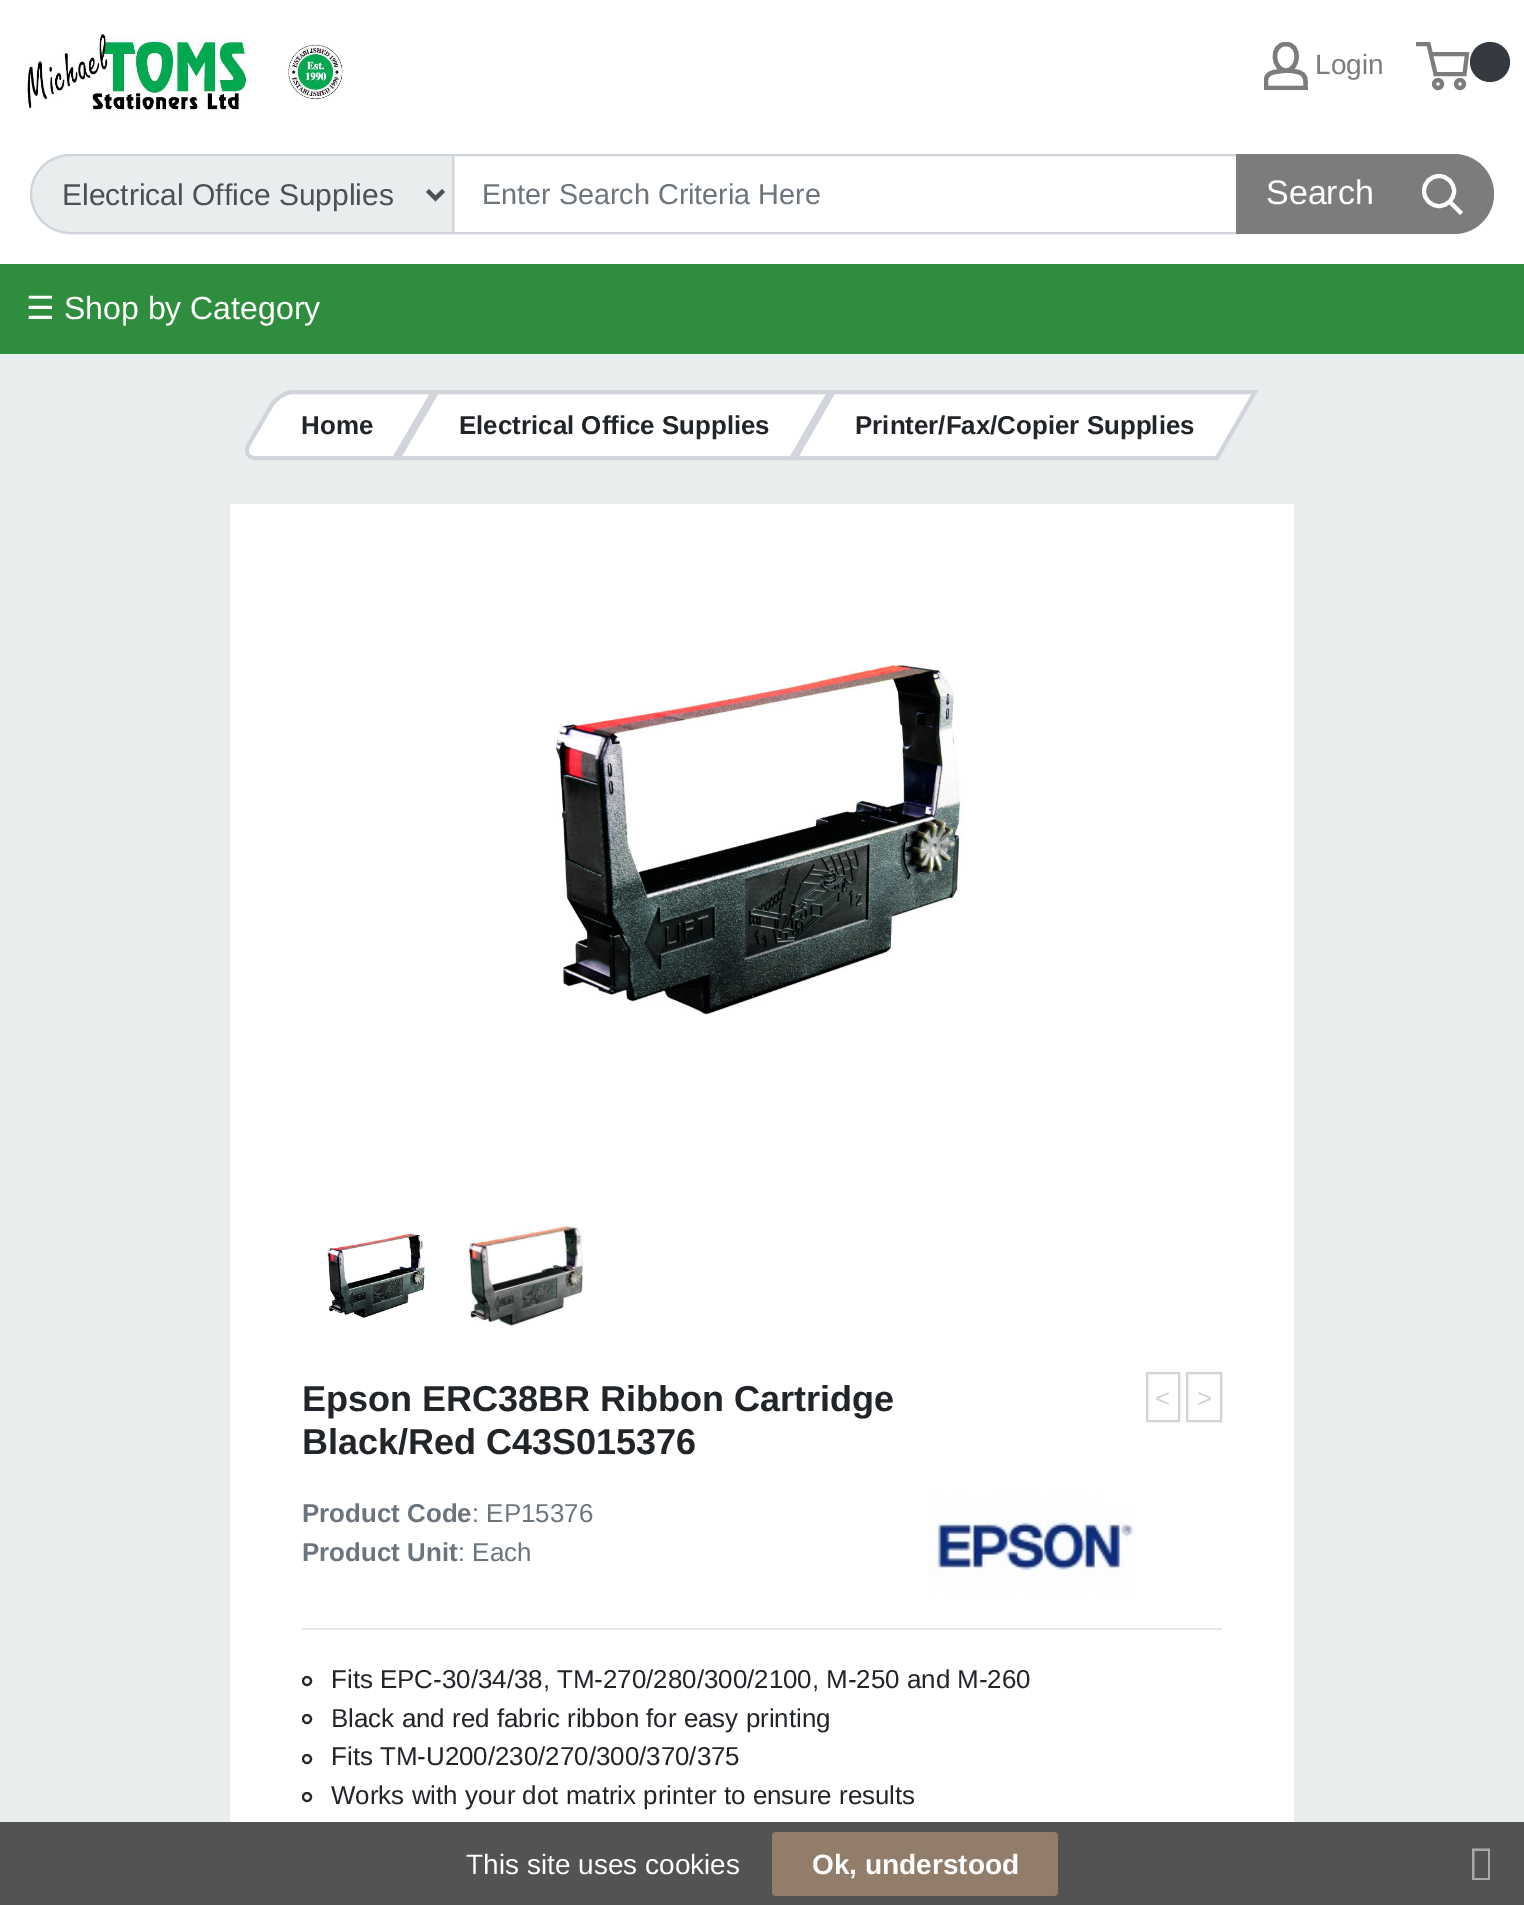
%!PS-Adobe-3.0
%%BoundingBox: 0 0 1524 1905
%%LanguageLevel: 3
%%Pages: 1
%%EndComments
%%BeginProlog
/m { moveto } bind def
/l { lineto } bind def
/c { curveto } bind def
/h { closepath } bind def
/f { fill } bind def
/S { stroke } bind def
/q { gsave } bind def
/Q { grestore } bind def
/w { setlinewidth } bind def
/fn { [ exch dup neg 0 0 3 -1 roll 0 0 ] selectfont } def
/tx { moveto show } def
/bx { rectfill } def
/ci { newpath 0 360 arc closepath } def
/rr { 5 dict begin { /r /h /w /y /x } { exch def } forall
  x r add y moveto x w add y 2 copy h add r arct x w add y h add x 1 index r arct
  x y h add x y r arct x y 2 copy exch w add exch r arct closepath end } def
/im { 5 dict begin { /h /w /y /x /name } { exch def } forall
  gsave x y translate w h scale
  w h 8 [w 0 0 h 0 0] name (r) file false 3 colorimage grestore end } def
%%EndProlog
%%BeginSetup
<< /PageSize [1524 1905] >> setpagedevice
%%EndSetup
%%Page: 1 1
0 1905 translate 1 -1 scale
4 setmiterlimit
0.918 0.929 0.929 setrgbcolor
0 0 1524 1905 bx
1 setgray
0 0 1524 264 bx
q
1264 42 44 48 rectclip
0.482 0.486 0.482 setrgbcolor
4.4 w
1286 70.5 m 1290 70.5 1294 71 1298 72 c 1307 74.5 1305.5 80 1305.5 88 c 1266 88 l 1266 79 1264.5 74.5 1274.5 72 c h 1286 70.5 m 1272.5 70.5 1270 44 1286 44 c 1301.5 44 1299 70.5 1286 70.5 c h S
Q
/LiberationSans-Regular 28 fn
0.482 0.486 0.482 setrgbcolor
(Login) 1315 74 tx
4 w
1430.5 54 m 1467 54 l 1464.5 74 l 1435.5 74 l 1428.5 44 l 1416 44 l S
0.204 0.227 0.251 setrgbcolor
1490 62 20 ci f
0.482 0.486 0.482 setrgbcolor
1438 84 4 ci S
1460 84 4 ci S
(image0.raw) 24 34 319 79 im
0.918 0.929 0.929 setrgbcolor
70 155 m 451 155 l 452 155 453 156 453 157 c 453 231 l 453 232 452 233 451 233 c 70 233 l 48.5 233 31 215.5 31 194 c 31 172.5 48.5 155 70 155 c h q f Q
0.808 0.831 0.855 setrgbcolor
2 w
S
0.286 0.314 0.341 setrgbcolor
4 w
427.5 190.5 m 435.5 198.5 l 443.5 190.5 l S
/LiberationSans-Regular 30 fn
(Electrical Office Supplies) 62 205 tx
0.808 0.831 0.855 setrgbcolor
2 w
453 155 784 78 rectstroke
/LiberationSans-Regular 28.75 fn
0.424 0.459 0.49 setrgbcolor
(Enter Search Criteria Here) 482 204 tx
0.482 0.486 0.482 setrgbcolor
1236 154 m 1454 154 l 1476 154 1494 172 1494 194 c 1494 216 1476 234 1454 234 c 1236 234 l h f
/LiberationSans-Regular 34 fn
1 setgray
(Search) 1266 204 tx
4 w
2 setlinecap
1460 212 m 1450 202 l S
0 setlinecap
1439 191 15 ci S
0.184 0.553 0.243 setrgbcolor
0 264 1524 90 bx
/DejaVuSans-Regular 32 fn
1 setgray
(☰) 26 319 tx
/LiberationSans-Regular 32 fn
(Shop by Category) 64 319 tx
294 390 m 436 390 l 396 460 l 254 460 l 245 460 242 453 247 444 c 269 406 l 274 397 285 390 294 390 c h f
0.82 0.835 0.859 setrgbcolor
293 392 m 433 392 l 394.5 458 l 255 458 l 247 458 244.5 452 249 444 c 271 406 l 275.5 398.5 285.5 392 293 392 c h S
/LiberationSans-Bold 25.9 fn
0.129 0.145 0.161 setrgbcolor
(Home) 301 434 tx
1 setgray
436 390 m 833 390 l 792 460 l 396 460 l h f
0.82 0.835 0.859 setrgbcolor
437 392 m 829.5 392 l 791.5 458 l 398.5 458 l h S
0.129 0.145 0.161 setrgbcolor
(Electrical Office Supplies) 459 434 tx
1 setgray
833 390 m 1258 390 l 1218 460 l 792 460 l h f
0.82 0.835 0.859 setrgbcolor
833.5 392 m 1255 392 l 1217 458 l 795.5 458 l h S
0.129 0.145 0.161 setrgbcolor
(Printer/Fax/Copier Supplies) 855 434 tx
1 setgray
230 504 1064 1318 bx
(image1.raw) 553 665 410 350 im
(image2.raw) 327 1234 98 84 im
(image3.raw) 468 1224 116 102 im
/LiberationSans-Bold 36 fn
0.129 0.145 0.161 setrgbcolor
(Epson ERC38BR Ribbon Cartridge) 302 1411 tx
(Black/Red C43S015376) 302 1454 tx
0.827 setgray
2 w
1147 1373 32 48 rectstroke
/LiberationSans-Regular 25.9 fn
(<) 1155 1407 tx
1187 1373 34 48 rectstroke
(>) 1197 1407 tx
/LiberationSans-Bold 25.9 fn
0.424 0.459 0.49 setrgbcolor
(Product Code) 302 1522 tx
/LiberationSans-Regular 25.9 fn
(: EP15376) 472 1522 tx
/LiberationSans-Bold 25.9 fn
(Product Unit) 302 1561 tx
/LiberationSans-Regular 25.9 fn
(: Each) 458 1561 tx
(image4.raw) 928 1494 208 100 im
0.902 setgray
302 1628 920 2 bx
0.129 0.145 0.161 setrgbcolor
307 1681 4 ci S
(Fits EPC-30/34/38, TM-270/280/300/2100, M-250 and M-260) 331 1688 tx
307 1719 4 ci S
(Black and red fabric ribbon for easy printing) 331 1727 tx
307 1759 4 ci S
(Fits TM-U200/230/270/300/370/375) 331 1765 tx
307 1797 4 ci S
(Works with your dot matrix printer to ensure results) 331 1804 tx
0.325 setgray
0 1822 1524 83 bx
/LiberationSans-Regular 28 fn
1 setgray
(This site uses cookies) 466 1874 tx
0.573 0.49 0.416 setrgbcolor
772 1832 286 64 4 rr f
/LiberationSans-Bold 28 fn
1 setgray
(Ok, understood) 812 1874 tx
0.663 setgray
1472 1880 m 1472 1848.5 l 1490 1848.5 l 1490 1880 l h 1474.5 1878 m 1488 1878 l 1488 1851 l 1474.5 1851 l h f
showpage
%%EOF
